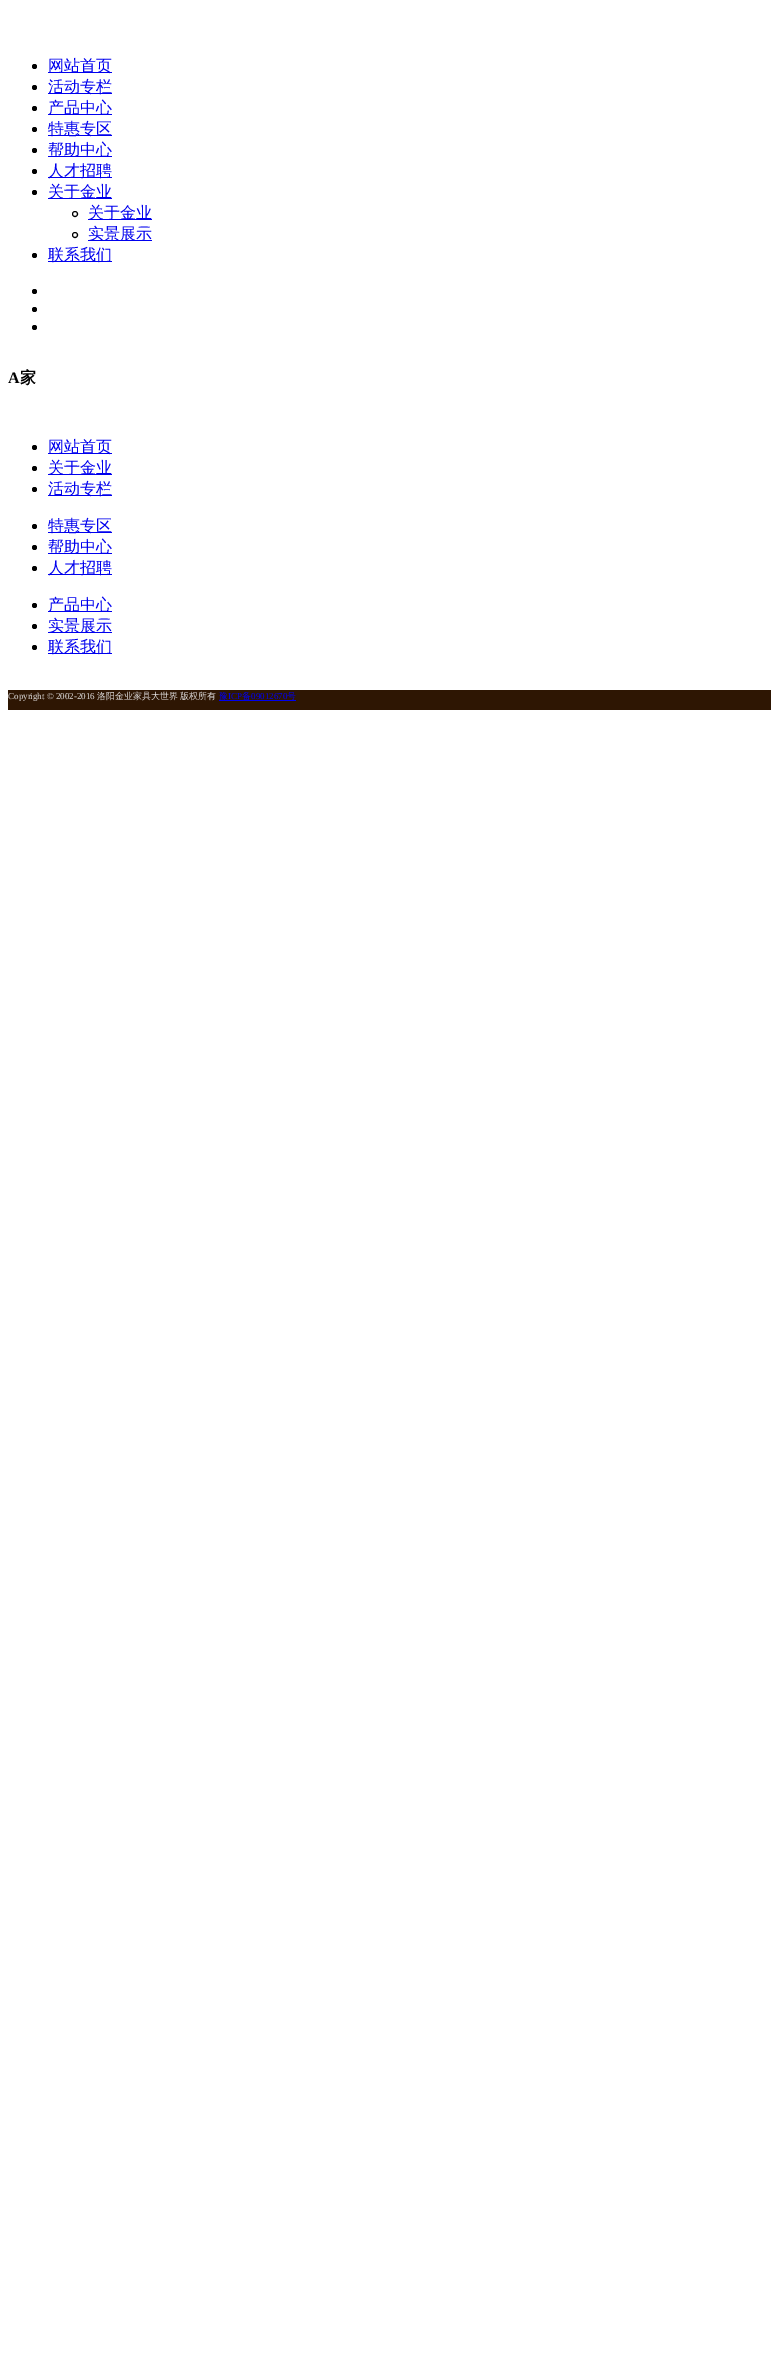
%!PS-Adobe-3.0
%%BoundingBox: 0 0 779 2363
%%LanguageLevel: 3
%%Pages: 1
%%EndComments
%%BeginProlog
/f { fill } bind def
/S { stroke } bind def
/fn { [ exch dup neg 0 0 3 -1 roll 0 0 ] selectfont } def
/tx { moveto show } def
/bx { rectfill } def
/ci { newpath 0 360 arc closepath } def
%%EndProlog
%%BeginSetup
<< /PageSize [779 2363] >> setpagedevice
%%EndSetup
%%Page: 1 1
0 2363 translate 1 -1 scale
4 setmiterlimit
1 setgray
0 0 779 2363 bx
0 setgray
34.5 66.5 2.5 ci f
0 0 0.933 setrgbcolor
48 72 64 1 bx
/WenQuanYiZenHei-Medium 16 fn
(网站首页) 48 71 tx
0 setgray
34.5 87.5 2.5 ci f
0 0 0.933 setrgbcolor
48 93 64 1 bx
(活动专栏) 48 92 tx
0 setgray
34.5 108.5 2.5 ci f
0 0 0.933 setrgbcolor
48 114 64 1 bx
(产品中心) 48 113 tx
0 setgray
34.5 129.5 2.5 ci f
0 0 0.933 setrgbcolor
48 135 64 1 bx
(特惠专区) 48 134 tx
0 setgray
34.5 150.5 2.5 ci f
0 0 0.933 setrgbcolor
48 156 64 1 bx
(帮助中心) 48 155 tx
0 setgray
34.5 171.5 2.5 ci f
0 0 0.933 setrgbcolor
48 177 64 1 bx
(人才招聘) 48 176 tx
0 setgray
34.5 192.5 2.5 ci f
0 0 0.933 setrgbcolor
48 198 64 1 bx
(关于金业) 48 197 tx
0 setgray
75 214 2.5 ci S
0 0 0.933 setrgbcolor
88 219 64 1 bx
(关于金业) 88 218 tx
0 setgray
75 235 2.5 ci S
0 0 0.933 setrgbcolor
88 240 64 1 bx
(实景展示) 88 239 tx
0 setgray
34.5 255.5 2.5 ci f
0 0 0.933 setrgbcolor
48 261 64 1 bx
(联系我们) 48 260 tx
0 setgray
34.5 291.5 2.5 ci f
34.5 309.5 2.5 ci f
34.5 327.5 2.5 ci f
/LiberationSerif-Bold 16 fn
(A) 8 383 tx
/WenQuanYiZenHei-Bold 16 fn
(家) 20 383 tx
34.5 447.5 2.5 ci f
0 0 0.933 setrgbcolor
48 453 64 1 bx
/WenQuanYiZenHei-Medium 16 fn
(网站首页) 48 452 tx
0 setgray
34.5 468.5 2.5 ci f
0 0 0.933 setrgbcolor
48 474 64 1 bx
(关于金业) 48 473 tx
0 setgray
34.5 489.5 2.5 ci f
0 0 0.933 setrgbcolor
48 495 64 1 bx
(活动专栏) 48 494 tx
0 setgray
34.5 526.5 2.5 ci f
0 0 0.933 setrgbcolor
48 532 64 1 bx
(特惠专区) 48 531 tx
0 setgray
34.5 547.5 2.5 ci f
0 0 0.933 setrgbcolor
48 553 64 1 bx
(帮助中心) 48 552 tx
0 setgray
34.5 568.5 2.5 ci f
0 0 0.933 setrgbcolor
48 574 64 1 bx
(人才招聘) 48 573 tx
0 setgray
34.5 605.5 2.5 ci f
0 0 0.933 setrgbcolor
48 611 64 1 bx
(产品中心) 48 610 tx
0 setgray
34.5 626.5 2.5 ci f
0 0 0.933 setrgbcolor
48 632 64 1 bx
(实景展示) 48 631 tx
0 setgray
34.5 647.5 2.5 ci f
0 0 0.933 setrgbcolor
48 653 64 1 bx
(联系我们) 48 652 tx
0.18 0.086 0.012 setrgbcolor
8 690 763 20 bx
/LiberationSerif-Regular 9 fn
0.871 0.863 0.863 setrgbcolor
(Copyright © 2002-2016) 8 699 tx
/WenQuanYiZenHei-Medium 9 fn
(洛阳金业家具大世界) 97 699 tx
(版权所有) 180 699 tx
0 0 0.933 setrgbcolor
219 700 77 1 bx
(豫) 219 699 tx
/LiberationSerif-Regular 9 fn
(ICP) 228 699 tx
/WenQuanYiZenHei-Medium 9 fn
(备) 242 699 tx
/LiberationSerif-Regular 9 fn
(09012670) 251 699 tx
/WenQuanYiZenHei-Medium 9 fn
(号) 287 699 tx
showpage
%%EOF
